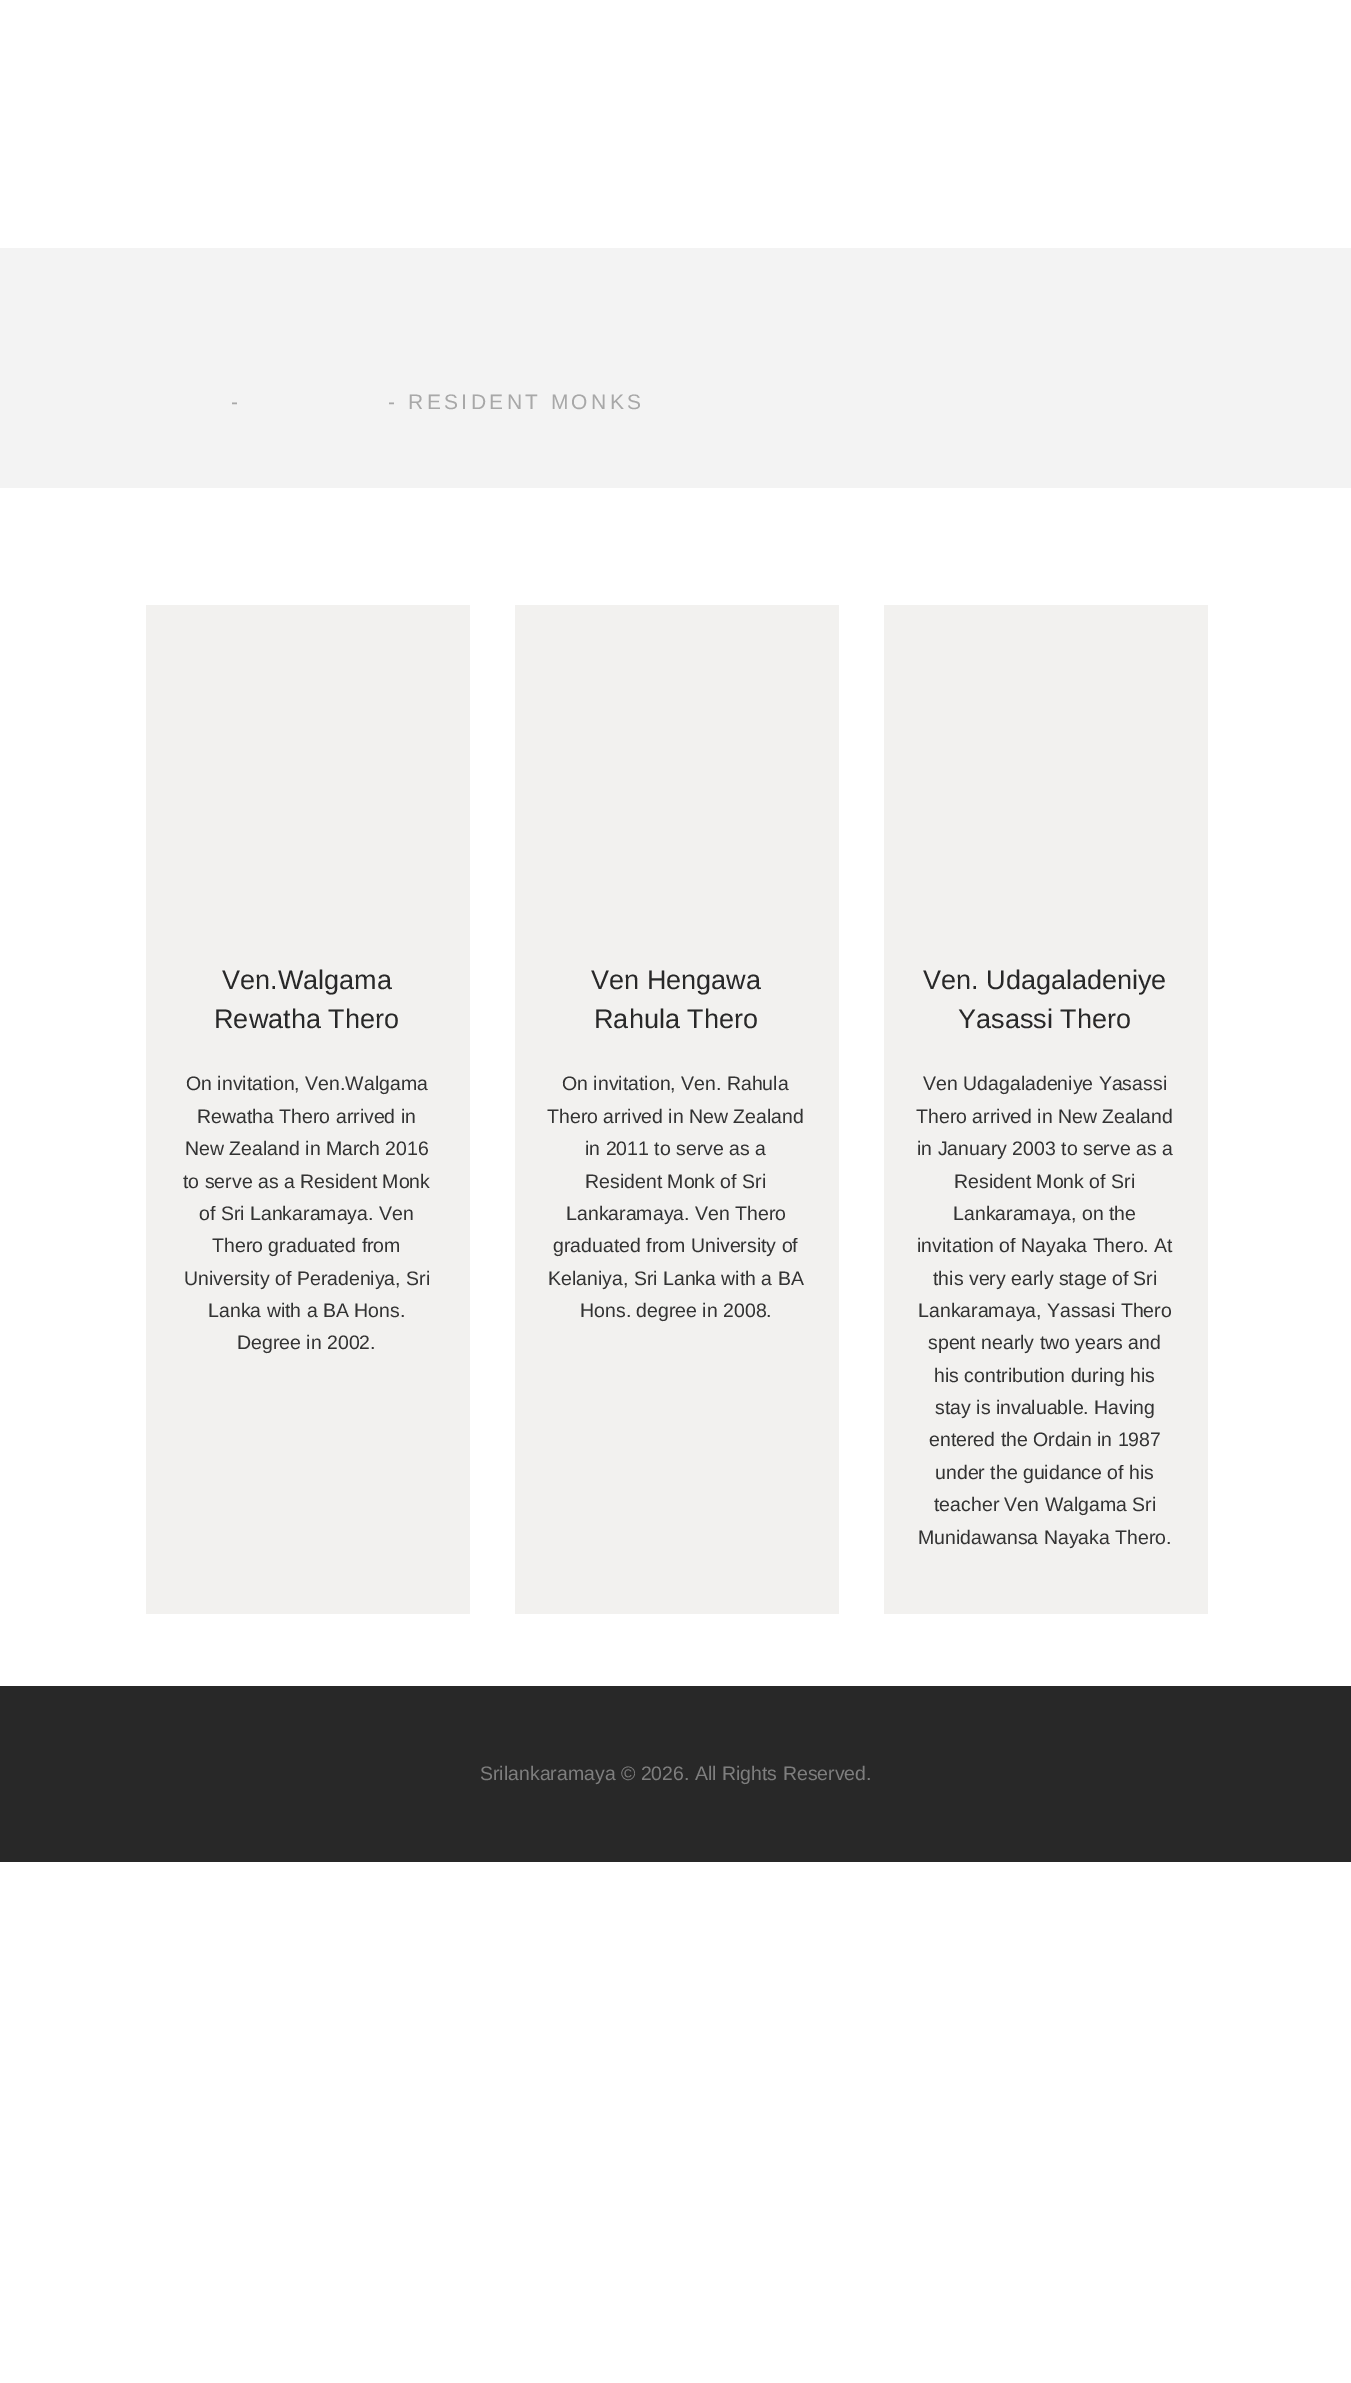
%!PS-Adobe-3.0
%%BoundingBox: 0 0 1351 2383
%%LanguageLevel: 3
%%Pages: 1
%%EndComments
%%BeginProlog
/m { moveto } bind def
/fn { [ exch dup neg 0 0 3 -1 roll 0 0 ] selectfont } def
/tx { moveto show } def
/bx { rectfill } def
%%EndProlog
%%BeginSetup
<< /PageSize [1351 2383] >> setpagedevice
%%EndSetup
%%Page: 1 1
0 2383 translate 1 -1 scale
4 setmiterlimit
1 setgray
0 0 1351 2383 bx
0.953 setgray
0 248 1351 240 bx
/LiberationSans-Regular 21 fn
0.659 setgray
231 409 m 3.4 0 (-) ashow
388 409 m 3.4 0 (-) ashow
408 409 m 3.4 0 (RESIDENT MONKS) ashow
0.949 0.945 0.937 setrgbcolor
146 605 324 1009 bx
/LiberationSans-Regular 27 fn
0.157 setgray
(Ven.Walgama) 222 989 tx
(Rewatha Thero) 214 1028 tx
/LiberationSans-Regular 19.5 fn
0.2 setgray
(On invitation, Ven.Walgama) 186 1090 tx
(Rewatha Thero arrived in) 197 1123 tx
(New Zealand in March 2016) 185 1155 tx
(to serve as a Resident Monk) 183 1188 tx
(of Sri Lankaramaya. Ven) 199 1220 tx
(Thero graduated from) 212 1252 tx
(University of Peradeniya, Sri) 184 1285 tx
(Lanka with a BA Hons.) 208 1317 tx
(Degree in 2002.) 237 1349 tx
0.949 0.945 0.937 setrgbcolor
515 605 324 1009 bx
/LiberationSans-Regular 27 fn
0.157 setgray
(Ven Hengawa) 591 989 tx
(Rahula Thero) 594 1028 tx
/LiberationSans-Regular 19.5 fn
0.2 setgray
(On invitation, Ven. Rahula) 562 1090 tx
(Thero arrived in New Zealand) 547 1123 tx
(in 2011 to serve as a) 585 1155 tx
(Resident Monk of Sri) 585 1188 tx
(Lankaramaya. Ven Thero) 566 1220 tx
(graduated from University of) 553 1252 tx
(Kelaniya, Sri Lanka with a BA) 548 1285 tx
(Hons. degree in 2008.) 580 1317 tx
0.949 0.945 0.937 setrgbcolor
884 605 324 1009 bx
/LiberationSans-Regular 27 fn
0.157 setgray
(Ven. Udagaladeniye) 923 989 tx
(Yasassi Thero) 958 1028 tx
/LiberationSans-Regular 19.5 fn
0.2 setgray
(Ven Udagaladeniye Yasassi) 923 1090 tx
(Thero arrived in New Zealand) 916 1123 tx
(in January 2003 to serve as a) 917 1155 tx
(Resident Monk of Sri) 954 1188 tx
(Lankaramaya, on the) 953 1220 tx
(invitation of Nayaka Thero. At) 917 1252 tx
(this very early stage of Sri) 933 1285 tx
(Lankaramaya, Yassasi Thero) 918 1317 tx
(spent nearly two years and) 928 1349 tx
(his contribution during his) 934 1382 tx
(stay is invaluable. Having) 935 1414 tx
(entered the Ordain in 1987) 929 1446 tx
(under the guidance of his) 935 1479 tx
(teacher Ven Walgama Sri) 934 1511 tx
(Munidawansa Nayaka Thero.) 918 1544 tx
0.157 setgray
0 1686 1351 176 bx
0.494 setgray
(Srilankaramaya © 2026. All Rights Reserved.) 480 1780 tx
showpage
%%EOF
